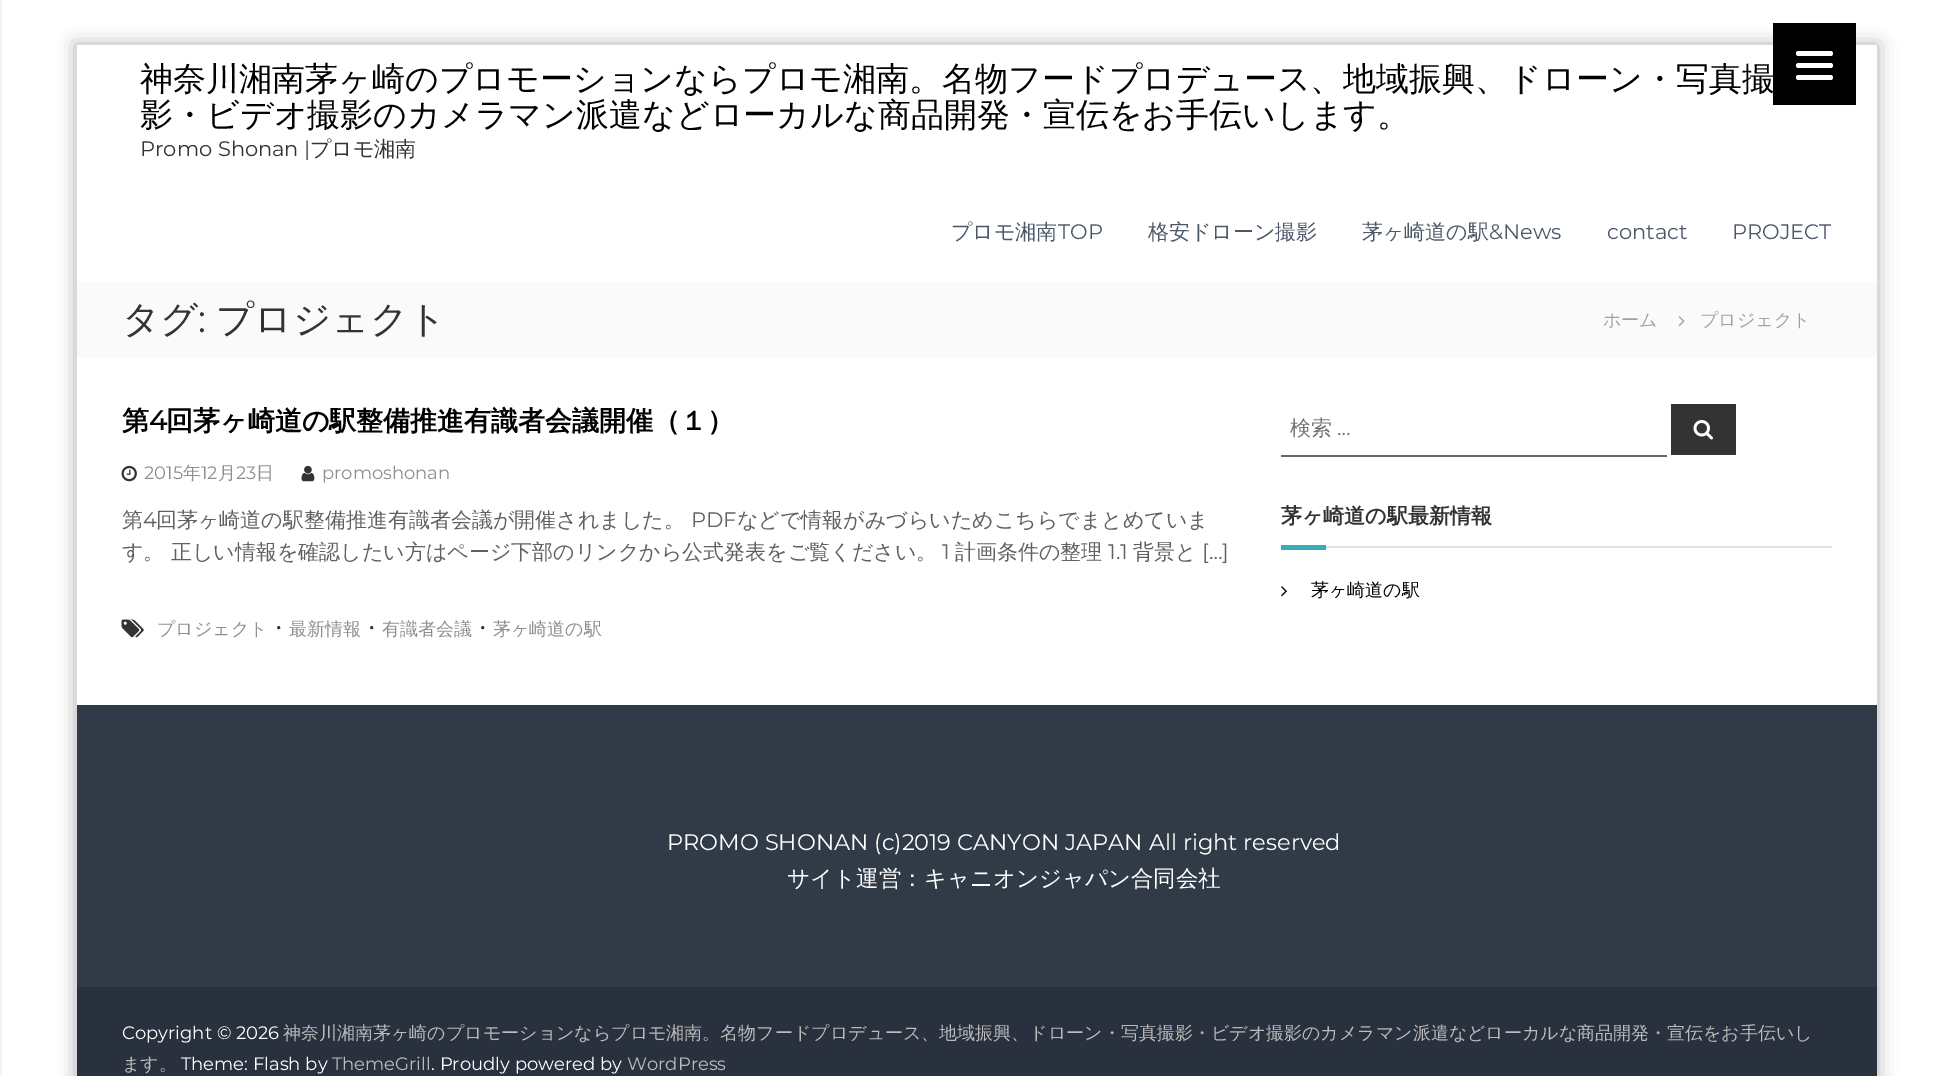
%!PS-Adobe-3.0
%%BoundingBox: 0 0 1953 1076
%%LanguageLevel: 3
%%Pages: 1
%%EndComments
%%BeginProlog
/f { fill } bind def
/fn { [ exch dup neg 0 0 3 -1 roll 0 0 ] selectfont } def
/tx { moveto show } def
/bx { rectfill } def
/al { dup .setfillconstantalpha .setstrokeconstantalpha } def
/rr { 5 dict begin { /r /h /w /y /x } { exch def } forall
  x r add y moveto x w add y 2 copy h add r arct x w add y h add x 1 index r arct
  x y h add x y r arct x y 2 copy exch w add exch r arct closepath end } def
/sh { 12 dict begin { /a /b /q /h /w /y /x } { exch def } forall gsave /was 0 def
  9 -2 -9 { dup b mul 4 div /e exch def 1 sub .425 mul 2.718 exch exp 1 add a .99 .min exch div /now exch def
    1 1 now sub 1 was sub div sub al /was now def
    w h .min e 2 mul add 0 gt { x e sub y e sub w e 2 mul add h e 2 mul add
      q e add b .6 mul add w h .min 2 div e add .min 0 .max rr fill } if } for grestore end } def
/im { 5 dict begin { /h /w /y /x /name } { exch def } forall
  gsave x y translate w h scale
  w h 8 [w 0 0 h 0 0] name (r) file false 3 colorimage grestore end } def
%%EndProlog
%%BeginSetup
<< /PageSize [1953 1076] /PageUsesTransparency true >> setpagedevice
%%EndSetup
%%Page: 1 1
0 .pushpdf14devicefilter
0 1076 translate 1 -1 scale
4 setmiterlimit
1 setgray
0 0 1953 1076 bx
0.961 0.949 0.949 setrgbcolor
0 0 2 1076 bx
0 setgray
75 44 1803 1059 0 9 0.3 sh
1 setgray
77 45 1800 660 bx
0 setgray
1773 23 83 82 bx
1 setgray
1796 63 37 5 2.5 rr f
1796 51 37 5 2.5 rr f
1796 75 37 5 2.5 rr f
/WenQuanYiZenHei-Medium 33 fn
0 setgray
(神奈川湘南茅ヶ崎のプロモーションならプロモ湘南。名物フードプロデュース、地域振興、ドローン・写真撮) 140 90 tx
(影・ビデオ撮影のカメラマン派遣などローカルな商品開発・宣伝をお手伝いします。) 140 126 tx
/Montserrat-Thin 21 fn
0.2 setgray
(Promo Shonan |) 140 156 tx
/WenQuanYiZenHei-Medium 21 fn
(プロモ湘南) 310 156 tx
0.298 0.345 0.404 setrgbcolor
(プロモ湘南) 951 239 tx
/Montserrat-Thin 21 fn
(TOP) 1058 239 tx
/WenQuanYiZenHei-Medium 21 fn
(格安ドローン撮影) 1148 239 tx
(茅ヶ崎道の駅) 1362 239 tx
/Montserrat-Thin 21 fn
(&News) 1489 239 tx
(contact) 1607 239 tx
(PROJECT) 1732 239 tx
0.98 setgray
77 282 1800 75 bx
/WenQuanYiZenHei-Medium 37.5 fn
0.2 setgray
(タグ) 122 332 tx
/Montserrat-Thin 37.5 fn
(:) 198 332 tx
/WenQuanYiZenHei-Medium 37.5 fn
(プロジェクト) 216 332 tx
/WenQuanYiZenHei-Medium 18 fn
0.631 setgray
(ホーム) 1603 326 tx
(image0.raw) 1678 316 7 11 im
(プロジェクト) 1700 326 tx
/WenQuanYiZenHei-Bold 27 fn
0 setgray
(第) 122 430 tx
/Montserrat-Bold 27 fn
(4) 149 430 tx
/WenQuanYiZenHei-Bold 27 fn
(回茅ヶ崎道の駅整備推進有識者会議開催（１）) 166 430 tx
(image1.raw) 121 465 16 17 im
/Montserrat-Thin 18 fn
0.557 setgray
(2015) 144 479 tx
/WenQuanYiZenHei-Medium 18 fn
(年) 183 479 tx
/Montserrat-Thin 18 fn
(12) 201 479 tx
/WenQuanYiZenHei-Medium 18 fn
(月) 218 479 tx
/Montserrat-Thin 18 fn
(23) 236 479 tx
/WenQuanYiZenHei-Medium 18 fn
(日) 256 479 tx
(image2.raw) 301 465 14 17 im
/Montserrat-Thin 18 fn
(promoshonan) 322 479 tx
/WenQuanYiZenHei-Medium 21 fn
0.376 setgray
(第) 122 527 tx
/Montserrat-Thin 21 fn
(4) 143 527 tx
/WenQuanYiZenHei-Medium 21 fn
(回茅ヶ崎道の駅整備推進有識者会議が開催されました。) 156 527 tx
/Montserrat-Thin 21 fn
(PDF) 691 527 tx
/WenQuanYiZenHei-Medium 21 fn
(などで情報がみづらいためこちらでまとめていま) 737 527 tx
(す。 正しい情報を確認したい方はページ下部のリンクから公式発表をご覧ください。) 122 559 tx
/Montserrat-Thin 21 fn
(1) 942 559 tx
/WenQuanYiZenHei-Medium 21 fn
(計画条件の整理) 955 559 tx
/Montserrat-Thin 21 fn
(1.1) 1108 559 tx
/WenQuanYiZenHei-Medium 21 fn
(背景と) 1133 559 tx
/Montserrat-Thin 21 fn
([…]) 1202 559 tx
(image3.raw) 121 619 23 19 im
/WenQuanYiZenHei-Medium 18 fn
0.557 setgray
(プロジェクト) 157 635 tx
/WenQuanYiZenHei-Medium 21 fn
0.2 setgray
(・) 268 635 tx
/WenQuanYiZenHei-Medium 18 fn
0.557 setgray
(最新情報) 289 635 tx
/WenQuanYiZenHei-Medium 21 fn
0.2 setgray
(・) 361 635 tx
/WenQuanYiZenHei-Medium 18 fn
0.557 setgray
(有識者会議) 382 635 tx
/WenQuanYiZenHei-Medium 21 fn
0.2 setgray
(・) 472 635 tx
/WenQuanYiZenHei-Medium 18 fn
0.557 setgray
(茅ヶ崎道の駅) 493 635 tx
0.4 setgray
1281 455 386 2 bx
/WenQuanYiZenHei-Medium 21 fn
0.459 setgray
(検索) 1290 435 tx
/Montserrat-Thin 21 fn
(…) 1337 435 tx
0.2 setgray
1671 404 65 51 bx
(image4.raw) 1693 420 20 20 im
/WenQuanYiZenHei-Bold 21 fn
(茅ヶ崎道の駅最新情報) 1281 523 tx
0.188 0.686 0.722 setrgbcolor
1281 545 45 5 bx
0.882 setgray
1326 546 506 2 bx
(image5.raw) 1281 586 6 11 im
/WenQuanYiZenHei-Medium 18 fn
0 setgray
(茅ヶ崎道の駅) 1311 596 tx
0.192 0.231 0.282 setrgbcolor
77 705 1800 282 bx
/Montserrat-Thin 22.5 fn
1 setgray
(PROMO SHONAN \(c\)2019 CANYON JAPAN All right reserved) 667 850 tx
/WenQuanYiZenHei-Medium 22.5 fn
(サイト運営：キャニオンジャパン合同会社) 787 886 tx
0.157 0.192 0.239 setrgbcolor
77 987 1800 89 bx
/Montserrat-Thin 18 fn
1 setgray
(Copyright © 2026) 122 1039 tx
/WenQuanYiZenHei-Medium 18 fn
0.737 0.729 0.729 setrgbcolor
(神奈川湘南茅ヶ崎のプロモーションならプロモ湘南。名物フードプロデュース、地域振興、ドローン・写真撮影・ビデオ撮影のカメラマン派遣などローカルな商品開発・宣伝をお手伝いし) 283 1039 tx
(ます。) 122 1070 tx
/Montserrat-Thin 18 fn
1 setgray
(Theme: Flash by) 181 1070 tx
0.737 0.729 0.729 setrgbcolor
(ThemeGrill) 332 1070 tx
1 setgray
(. Proudly powered by) 431 1070 tx
0.737 0.729 0.729 setrgbcolor
(WordPress) 627 1070 tx
.poppdf14devicefilter showpage
%%EOF
